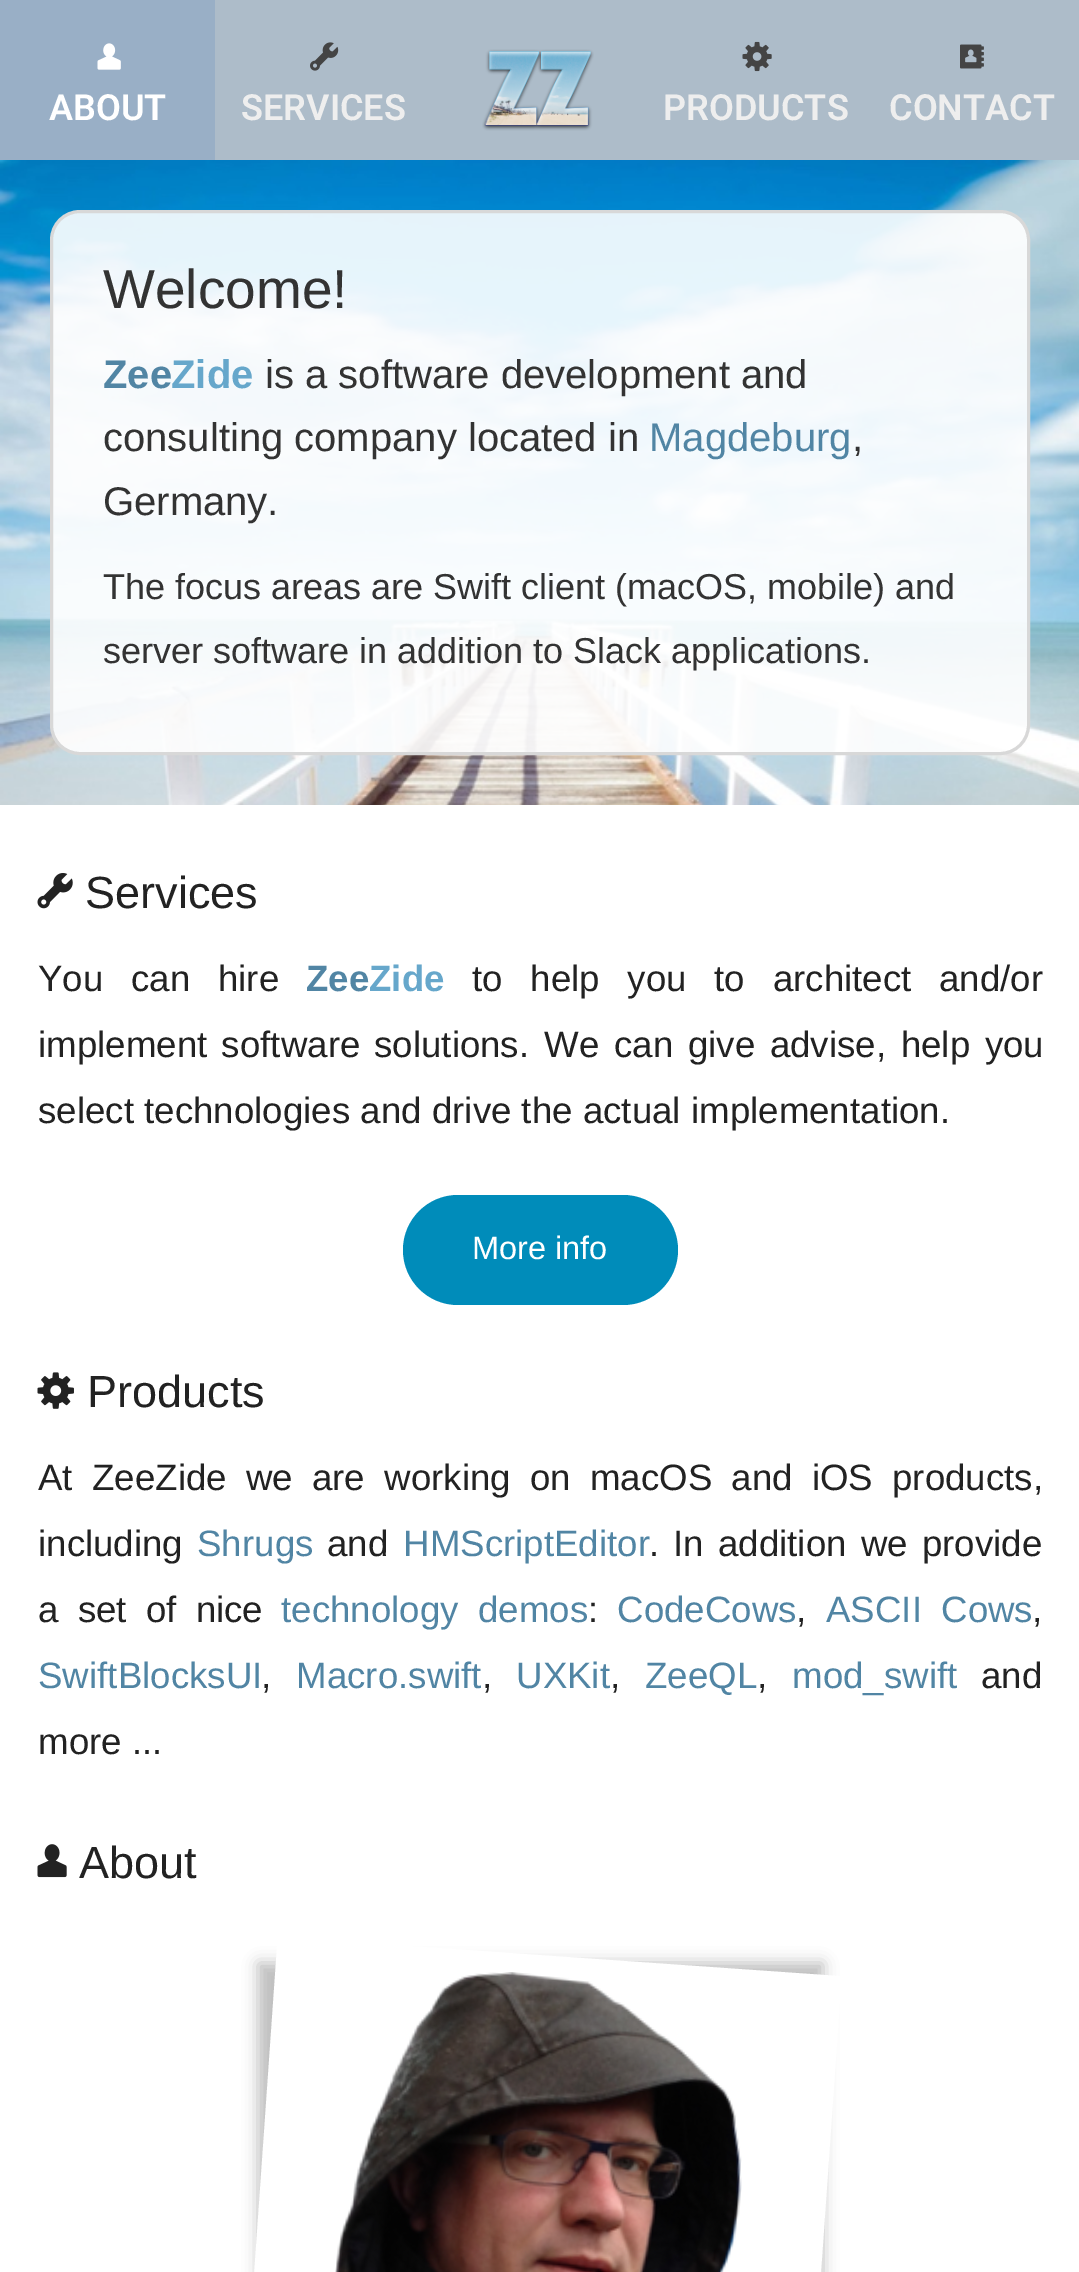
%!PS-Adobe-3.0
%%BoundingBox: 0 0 1079 2272
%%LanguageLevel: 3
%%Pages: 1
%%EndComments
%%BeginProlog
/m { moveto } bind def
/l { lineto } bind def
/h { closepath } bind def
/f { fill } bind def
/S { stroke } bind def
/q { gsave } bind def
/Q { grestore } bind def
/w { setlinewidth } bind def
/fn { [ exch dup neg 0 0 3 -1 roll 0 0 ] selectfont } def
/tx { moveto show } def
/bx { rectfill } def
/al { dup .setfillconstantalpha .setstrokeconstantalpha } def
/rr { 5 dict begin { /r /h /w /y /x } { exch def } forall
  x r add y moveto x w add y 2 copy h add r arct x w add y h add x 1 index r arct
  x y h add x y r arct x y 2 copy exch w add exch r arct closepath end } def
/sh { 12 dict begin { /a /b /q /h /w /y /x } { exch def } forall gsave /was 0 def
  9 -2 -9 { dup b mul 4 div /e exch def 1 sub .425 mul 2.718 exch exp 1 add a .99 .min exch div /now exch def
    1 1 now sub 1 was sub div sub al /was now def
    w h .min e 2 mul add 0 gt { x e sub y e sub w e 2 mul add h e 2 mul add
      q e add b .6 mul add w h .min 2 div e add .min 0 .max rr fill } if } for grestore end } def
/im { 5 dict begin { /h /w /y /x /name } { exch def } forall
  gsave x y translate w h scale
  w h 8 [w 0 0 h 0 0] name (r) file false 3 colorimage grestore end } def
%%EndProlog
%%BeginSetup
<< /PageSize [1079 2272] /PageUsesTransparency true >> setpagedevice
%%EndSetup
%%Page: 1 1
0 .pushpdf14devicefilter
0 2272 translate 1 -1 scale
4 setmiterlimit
1 setgray
0 0 1079 2272 bx
0.678 0.737 0.788 setrgbcolor
215 0 864 160 bx
0.6 0.686 0.776 setrgbcolor
0 0 215 160 bx
(image0.raw) 97 43 24 27 im
/Roboto-SemiBold 36 fn
1 setgray
(ABOUT) 49 120 tx
(image1.raw) 310 42 29 29 im
0.933 setgray
(SERVICES) 241 120 tx
(image2.raw) 482 49 112 82 im
(image3.raw) 742 41 30 31 im
(PRODUCTS) 663 120 tx
(image4.raw) 960 44 24 25 im
(CONTACT) 889 120 tx
(image5.raw) 0 160 1079 645 im
0.9 al
1 setgray
51.5 211.5 977 542 28.5 rr f
1 al
0.847 setgray
3 w
51.5 211.5 977 542 28.5 rr S
/LiberationSans-Regular 55 fn
0.2 setgray
(Welcome!) 103 308 tx
/LiberationSans-Bold 40 fn
0.318 0.522 0.643 setrgbcolor
(Zee) 103 388 tx
0.4 0.655 0.796 setrgbcolor
(Zide) 171 388 tx
/LiberationSans-Regular 40 fn
0.2 setgray
(is a software development and) 265 388 tx
(consulting company located in) 103 451 tx
0.318 0.522 0.643 setrgbcolor
(Magdeburg) 649 451 tx
0.2 setgray
(,) 852 451 tx
(Germany.) 103 515 tx
/LiberationSans-Regular 36 fn
(The focus areas are Swift client \(macOS, mobile\) and) 103 599 tx
(server software in addition to Slack applications.) 103 663 tx
(image6.raw) 37 873 36 36 im
/LiberationSans-Regular 45 fn
0.133 setgray
(Services) 85 908 tx
/LiberationSans-Regular 36.7 fn
38 991 m 17.5 0 32 (You can hire) widthshow
/LiberationSans-Bold 36.7 fn
0.318 0.522 0.643 setrgbcolor
(Zee) 306 991 tx
0.4 0.655 0.796 setrgbcolor
(Zide) 369 991 tx
/LiberationSans-Regular 36.7 fn
0.133 setgray
472 991 m 17.5 0 32 (to help you to architect and/or) widthshow
38 1057 m 4 0 32 (implement software) widthshow
(solutions.) 374 1057 tx
544 1057 m 4.5 0 32 (We can give advise, help you) widthshow
(select technologies and drive the actual implementation.) 38 1123 tx
0 0.549 0.729 setrgbcolor
403 1195 275 110 55 rr f
/LiberationSans-Regular 32.5 fn
1 setgray
(More info) 472 1259 tx
(image7.raw) 37 1372 37 37 im
/LiberationSans-Regular 45 fn
0.133 setgray
(Products) 87 1407 tx
/LiberationSans-Regular 36.7 fn
38 1490 m 9 0 32 (At ZeeZide we are working on macOS and iOS products,) widthshow
(including) 38 1556 tx
0.318 0.522 0.643 setrgbcolor
(Shrugs) 197 1556 tx
0.133 setgray
(and) 327 1556 tx
0.318 0.522 0.643 setrgbcolor
(HMScriptEditor) 403 1556 tx
0.133 setgray
(.) 649 1556 tx
673 1556 m 4 0 32 (In addition we provide) widthshow
38 1622 m 9 0 32 (a set of nice) widthshow
0.318 0.522 0.643 setrgbcolor
281 1622 m 9 0 32 (technology demos) widthshow
0.133 setgray
(:) 588 1622 tx
0.318 0.522 0.643 setrgbcolor
(CodeCows) 617 1622 tx
0.133 setgray
(,) 796 1622 tx
0.318 0.522 0.643 setrgbcolor
826 1622 m 9 0 32 (ASCII Cows) widthshow
0.133 setgray
(,) 1032 1622 tx
0.318 0.522 0.643 setrgbcolor
(SwiftBlocksUI) 38 1688 tx
0.133 setgray
(,) 261 1688 tx
0.318 0.522 0.643 setrgbcolor
(Macro.swift) 296 1688 tx
0.133 setgray
(,) 482 1688 tx
0.318 0.522 0.643 setrgbcolor
(UXKit) 516 1688 tx
0.133 setgray
(,) 610 1688 tx
0.318 0.522 0.643 setrgbcolor
(ZeeQL) 645 1688 tx
0.133 setgray
(,) 757 1688 tx
0.318 0.522 0.643 setrgbcolor
(mod_swift) 792 1688 tx
0.133 setgray
(and) 981 1688 tx
(more ...) 38 1754 tx
(image8.raw) 37 1844 30 34 im
/LiberationSans-Regular 45 fn
(About) 79 1878 tx
q
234 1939 m 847 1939 l 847 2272 l 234 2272 l h 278 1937 m 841.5 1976.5 l 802 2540 l 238.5 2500.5 l h eoclip newpath
0 setgray
258 1963 565 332 0 7.5 0.25 sh
Q
1 setgray
20 w
287 1947.5 m 831 1985.5 l 793 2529 l 249 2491 l h S
(image9.raw) 335 1972 407 300 im
.poppdf14devicefilter showpage
%%EOF
